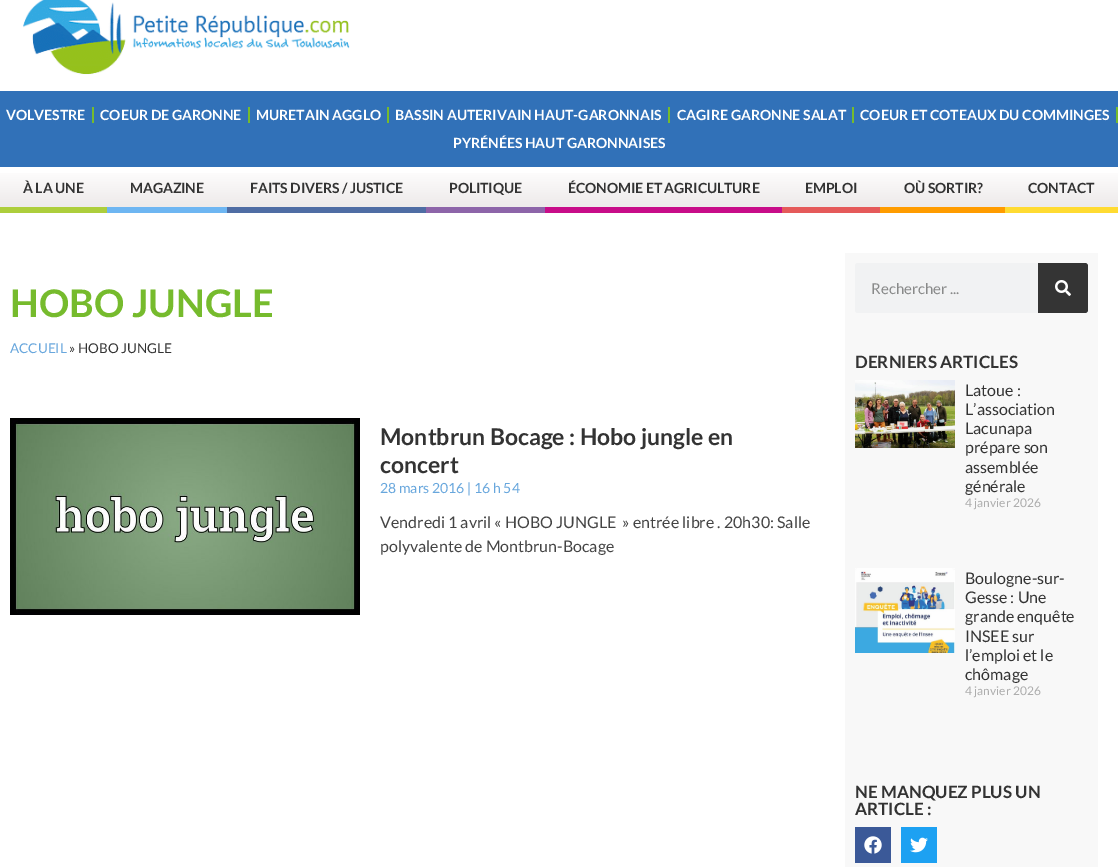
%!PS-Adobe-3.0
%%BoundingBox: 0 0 1118 867
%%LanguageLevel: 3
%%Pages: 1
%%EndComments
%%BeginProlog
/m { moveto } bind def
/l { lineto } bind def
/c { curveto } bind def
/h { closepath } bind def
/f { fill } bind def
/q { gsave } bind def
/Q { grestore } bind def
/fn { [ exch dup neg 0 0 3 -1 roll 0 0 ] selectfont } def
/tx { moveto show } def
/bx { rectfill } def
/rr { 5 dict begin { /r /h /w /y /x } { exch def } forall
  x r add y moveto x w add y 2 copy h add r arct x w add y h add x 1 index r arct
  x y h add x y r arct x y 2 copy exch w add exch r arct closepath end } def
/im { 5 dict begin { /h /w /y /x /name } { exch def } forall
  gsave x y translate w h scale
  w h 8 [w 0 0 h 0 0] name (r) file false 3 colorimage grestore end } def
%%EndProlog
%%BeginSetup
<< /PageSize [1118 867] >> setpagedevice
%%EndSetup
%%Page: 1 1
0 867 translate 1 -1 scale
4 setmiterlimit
1 setgray
0 0 1118 867 bx
(image0.raw) 23 0 327 75 im
0.192 0.443 0.722 setrgbcolor
0 91 1118 76 bx
/Lato-Bold 14 fn
1 setgray
(VOLVESTRE) 6 120 tx
0.463 0.733 0.176 setrgbcolor
92 107 2 16 bx
1 setgray
(COEUR DE GARONNE) 100 120 tx
0.463 0.733 0.176 setrgbcolor
248 107 2 16 bx
1 setgray
(MURETAIN AGGLO) 256 120 tx
0.463 0.733 0.176 setrgbcolor
387 107 2 16 bx
1 setgray
(BASSIN AUTERIVAIN HAUT-GARONNAIS) 395 120 tx
0.463 0.733 0.176 setrgbcolor
668 107 2 16 bx
1 setgray
(CAGIRE GARONNE SALAT) 677 120 tx
0.463 0.733 0.176 setrgbcolor
852 107 2 16 bx
1 setgray
(COEUR ET COTEAUX DU COMMINGES) 860 120 tx
0.463 0.733 0.176 setrgbcolor
1116 107 2 16 bx
1 setgray
(PYRÉNÉES HAUT GARONNAISES) 453 148 tx
q 0 173 m 1118 173 l 1118 207 l 0 207 l h clip newpath
<< /ShadingType 2 /ColorSpace /DeviceRGB /Coords [559 168 559 213] /Extend [true true] /Function << /FunctionType 3 /Domain [0 1] /Functions [<< /FunctionType 2 /Domain [0 1] /C0 [1 1 1] /C1 [0.933 0.922 0.922] /N 1 >> << /FunctionType 2 /Domain [0 1] /C0 [0.933 0.922 0.922] /C1 [0.933 0.922 0.922] /N 1 >>] /Bounds [0.8] /Encode [0 1 0 1] >> >> shfill Q
0.678 0.808 0.235 setrgbcolor
0 207 107 6 bx
0.2 setgray
23 193 m -0.1 0 (À LA UNE) ashow
0.431 0.714 0.949 setrgbcolor
107 207 120 6 bx
0.2 setgray
130 193 m -0.1 0 (MAGAZINE) ashow
0.31 0.427 0.643 setrgbcolor
227 207 199 6 bx
0.2 setgray
250 193 m -0.1 0 (FAITS DIVERS / JUSTICE) ashow
0.553 0.396 0.663 setrgbcolor
426 207 119 6 bx
0.2 setgray
449 193 m -0.1 0 (POLITIQUE) ashow
0.784 0.051 0.537 setrgbcolor
545 207 237 6 bx
0.2 setgray
568 193 m -0.1 0 (ÉCONOMIE ET AGRICULTURE) ashow
0.898 0.353 0.353 setrgbcolor
782 207 98 6 bx
0.2 setgray
805 193 m -0.1 0 (EMPLOI) ashow
1 0.612 0 setrgbcolor
880 207 125 6 bx
0.2 setgray
904 193 m -0.1 0 (OÙ SORTIR?) ashow
1 0.859 0.196 setrgbcolor
1005 207 113 6 bx
0.2 setgray
1028 193 m -0.1 0 (CONTACT) ashow
/Lato-Bold 38 fn
0.463 0.733 0.176 setrgbcolor
(HOBO JUNGLE) 10 317 tx
/Lato-Regular 13.5 fn
0.408 0.655 0.867 setrgbcolor
(ACCUEIL) 10 353 tx
0.2 setgray
(» HOBO JUNGLE) 69 353 tx
(image1.raw) 10 418 350 197 im
/Lato-Bold 23 fn
(Montbrun Bocage : Hobo jungle en) 380 445 tx
(concert) 380 473 tx
/Lato-Regular 14 fn
0.408 0.655 0.867 setrgbcolor
(28 mars 2016 | 16 h 54) 380 493 tx
/Lato-Regular 16 fn
0.267 setgray
(Vendredi 1 avril « HOBO JUNGLE  » entrée libre . 20h30: Salle) 380 528 tx
(polyvalente de Montbrun-Bocage) 380 552 tx
0.973 setgray
845 253 253 614 bx
0.945 0.949 0.953 setrgbcolor
855 263 233 50 3 rr f
/Lato-Regular 15 fn
0.537 0.541 0.541 setrgbcolor
(Rechercher ...) 871 294 tx
0.204 setgray
1038 263 m 1085 263 l 1086.5 263 1088 264.5 1088 266 c 1088 310 l 1088 311.5 1086.5 313 1085 313 c 1038 313 l h f
(image2.raw) 1055 280 16 16 im
/Lato-Bold 17 fn
0.2 setgray
(DERNIERS ARTICLES) 855 368 tx
(image3.raw) 855 380 100 68 im
/Lato-Regular 16 fn
(Latoue :) 965 396 tx
(L’association) 965 415 tx
(Lacunapa) 965 434 tx
(prépare son) 965 453 tx
(assemblée) 965 473 tx
(générale) 965 492 tx
/Lato-Regular 12 fn
0.678 setgray
(4 janvier 2026) 965 507 tx
(image4.raw) 855 568 100 85 im
/Lato-Regular 16 fn
0.2 setgray
(Boulogne-sur-) 965 584 tx
(Gesse : Une) 965 603 tx
(grande enquête) 965 622 tx
(INSEE sur) 965 642 tx
(l’emploi et le) 965 661 tx
(chômage) 965 680 tx
/Lato-Regular 12 fn
0.678 setgray
(4 janvier 2026) 965 695 tx
/Lato-Bold 17 fn
0.2 setgray
(NE MANQUEZ PLUS UN) 855 798 tx
(ARTICLE :) 855 815 tx
0.231 0.349 0.596 setrgbcolor
855 827 36 36 bx
(image5.raw) 864 836 18 18 im
0.114 0.631 0.949 setrgbcolor
901 827 36 36 bx
(image6.raw) 910 837 18 16 im
showpage
%%EOF
